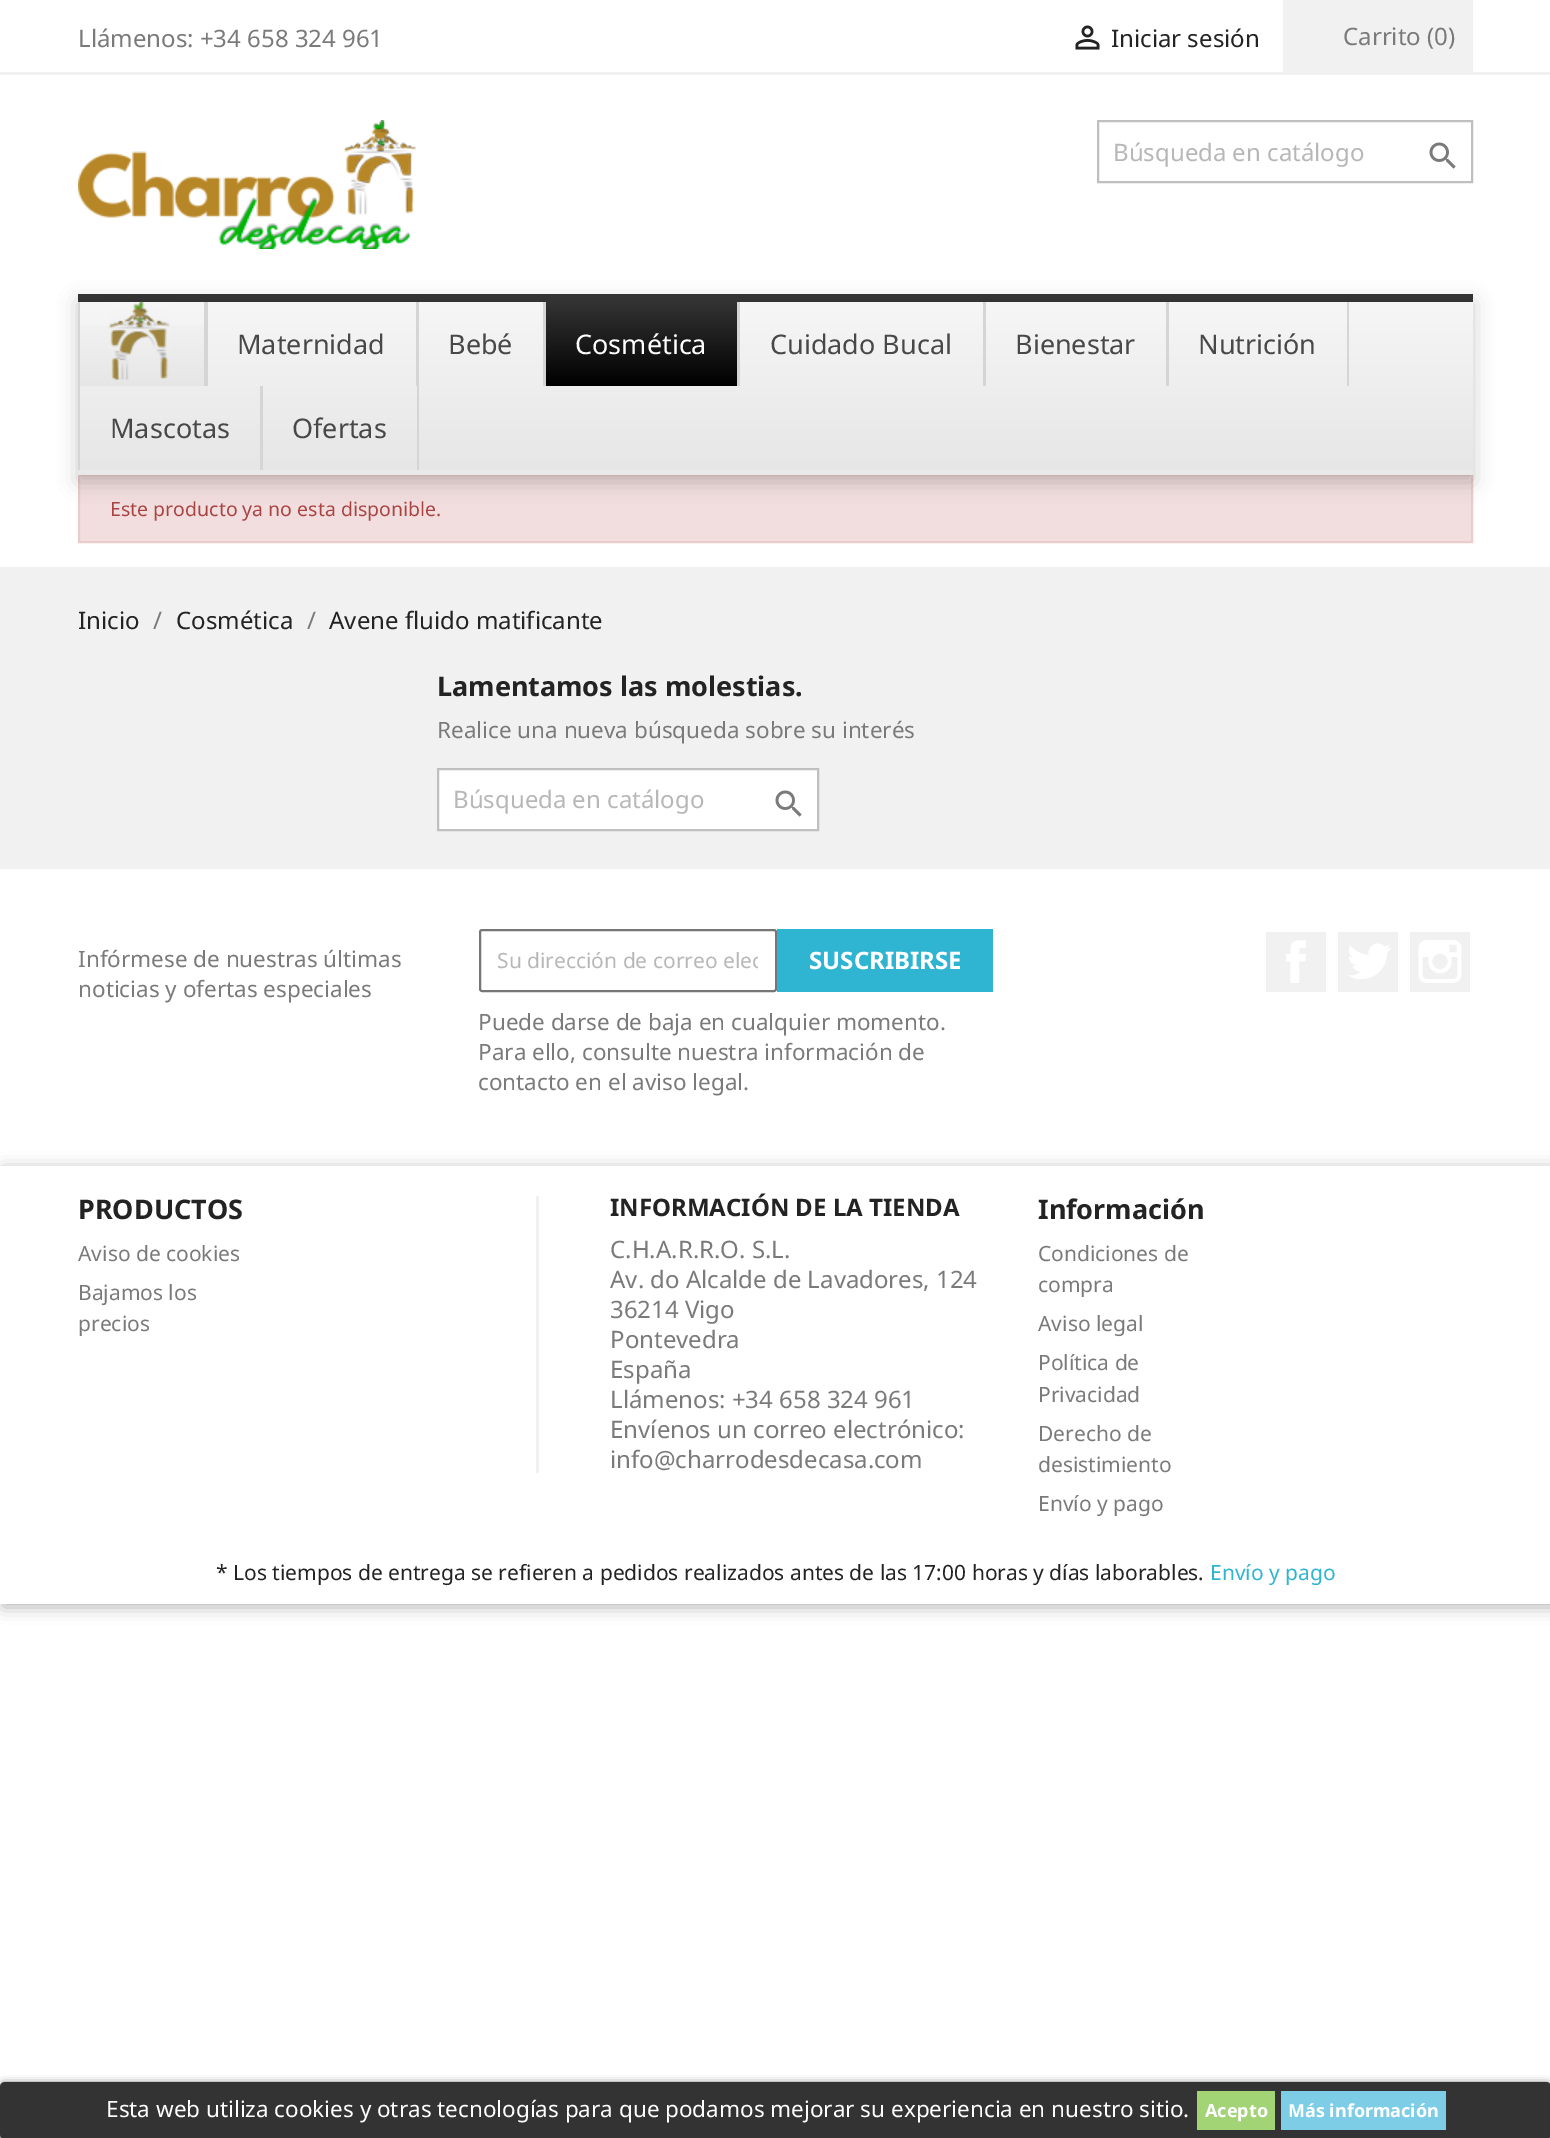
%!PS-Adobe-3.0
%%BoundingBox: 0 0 1550 2138
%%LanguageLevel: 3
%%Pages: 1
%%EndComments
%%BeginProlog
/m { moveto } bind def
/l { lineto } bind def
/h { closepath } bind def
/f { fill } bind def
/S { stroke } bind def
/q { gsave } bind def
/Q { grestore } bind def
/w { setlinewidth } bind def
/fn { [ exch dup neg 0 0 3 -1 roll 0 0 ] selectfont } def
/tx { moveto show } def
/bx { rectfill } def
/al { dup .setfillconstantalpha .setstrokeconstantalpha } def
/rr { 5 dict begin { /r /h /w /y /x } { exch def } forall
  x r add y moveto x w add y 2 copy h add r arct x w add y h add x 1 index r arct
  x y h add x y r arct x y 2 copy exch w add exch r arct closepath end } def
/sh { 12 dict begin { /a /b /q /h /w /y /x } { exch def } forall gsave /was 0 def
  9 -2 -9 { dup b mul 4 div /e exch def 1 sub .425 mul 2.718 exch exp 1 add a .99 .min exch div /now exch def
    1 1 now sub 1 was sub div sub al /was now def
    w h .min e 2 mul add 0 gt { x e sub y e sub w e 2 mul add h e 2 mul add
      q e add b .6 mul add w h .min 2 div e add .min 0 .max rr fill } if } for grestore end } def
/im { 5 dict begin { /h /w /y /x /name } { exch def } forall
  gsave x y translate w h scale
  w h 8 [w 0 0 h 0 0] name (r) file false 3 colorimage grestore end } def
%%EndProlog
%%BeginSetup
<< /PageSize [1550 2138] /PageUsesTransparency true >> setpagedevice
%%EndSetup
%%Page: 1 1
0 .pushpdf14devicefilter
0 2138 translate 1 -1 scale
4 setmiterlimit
1 setgray
0 0 1550 2138 bx
0.945 setgray
0 72 1550 3 bx
/NotoSans-Regular 24 fn
0.478 setgray
(Llámenos: +34 658 324 961) 78 47 tx
(image0.raw) 1075 25 25 25 im
0.137 setgray
(Iniciar sesión) 1111 47 tx
0.945 setgray
1283 0 190 72 bx
0.478 setgray
(Carrito \(0\)) 1343 45 tx
(image1.raw) 78 120 338 129 im
0.749 setgray
2 w
1098 121 374 61 rectstroke
0.718 setgray
(Búsqueda en catálogo) 1113 161 tx
(image2.raw) 1429 142 27 27 im
0.2 setgray
0 2084 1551 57 5 4 1 sh
1 2083 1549 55 4 rr q f Q
S
/NotoSans-Regular 22.5 fn
1 setgray
(Esta web utiliza cookies y otras tecnologías para que podamos mejorar su experiencia en nuestro sitio.) 106 2117 tx
0.635 0.831 0.463 setrgbcolor
1197 2091 78 39 bx
/NotoSans-Bold 18 fn
1 setgray
(Acepto) 1205 2117 tx
0.486 0.804 0.898 setrgbcolor
1281 2091 165 39 bx
1 setgray
(Más información) 1288 2117 tx
0.949 0.871 0.871 setrgbcolor
79 475 m 1472 475 l 1472 542 l 79 542 l h q f Q
0.922 0.8 0.8 setrgbcolor
S
0 setgray
78 302 1395 180 0 10 0.2 sh
0.2 setgray
78 294 1395 8 bx
q 80 302 m 1473 302 l 1473 470 l 80 470 l h clip newpath
<< /ShadingType 2 /ColorSpace /DeviceRGB /Coords [78 302 78 470] /Extend [true true] /Function << /FunctionType 2 /Domain [0 1] /C0 [0.965 0.965 0.965] /C1 [0.902 0.902 0.902] /N 1 >> >> shfill Q
0.914 setgray
78 470 1395 5 bx
0.839 0.831 0.831 setrgbcolor
204 302 4 84 bx
78 302 2 168 bx
q 80 326 m 204 326 l 204 386 l 80 386 l h clip newpath
<< /ShadingType 2 /ColorSpace /DeviceRGB /Coords [80 302 80 386] /Extend [true true] /Function << /FunctionType 2 /Domain [0 1] /C0 [0.965 0.965 0.965] /C1 [0.902 0.902 0.902] /N 1 >> >> shfill Q
(image3.raw) 109 301 61 79 im
416 302 3 84 bx
/NotoSans-Regular 27 fn
0.282 setgray
(Maternidad) 237 354 tx
0.839 0.831 0.831 setrgbcolor
543 302 3 84 bx
0.282 setgray
(Bebé) 448 354 tx
0.839 0.831 0.831 setrgbcolor
737 302 3 84 bx
q 546 302 m 737 302 l 737 386 l 546 386 l h clip newpath
<< /ShadingType 2 /ColorSpace /DeviceRGB /Coords [546 302 546 386] /Extend [true true] /Function << /FunctionType 2 /Domain [0 1] /C0 [0.2 0.2 0.2] /C1 [0 0 0] /N 1 >> >> shfill Q
1 setgray
(Cosmética) 575 354 tx
0.839 0.831 0.831 setrgbcolor
983 302 3 84 bx
0.282 setgray
(Cuidado Bucal) 770 354 tx
0.839 0.831 0.831 setrgbcolor
1166 302 3 84 bx
0.282 setgray
(Bienestar) 1015 354 tx
0.839 0.831 0.831 setrgbcolor
1347 302 2 84 bx
0.282 setgray
(Nutrición) 1198 354 tx
0.839 0.831 0.831 setrgbcolor
260 386 3 84 bx
0.282 setgray
(Mascotas) 110 438 tx
0.839 0.831 0.831 setrgbcolor
417 386 2 84 bx
0.282 setgray
(Ofertas) 292 438 tx
/NotoSans-Regular 19.5 fn
0.663 0.267 0.259 setrgbcolor
(Este producto ya no esta disponible.) 110 516 tx
0.945 setgray
0 567 1550 302 bx
/NotoSans-Regular 24 fn
0.137 setgray
(Inicio) 78 629 tx
0.478 setgray
(/) 153 629 tx
0.137 setgray
(Cosmética) 176 629 tx
0.478 setgray
(/) 307 629 tx
0.137 setgray
(Avene fluido matificante) 329 629 tx
/NotoSans-Bold 27 fn
(Lamentamos las molestias.) 437 696 tx
/NotoSans-Regular 22.5 fn
0.478 setgray
(Realice una nueva búsqueda sobre su interés) 437 738 tx
1 setgray
438 769 m 818 769 l 818 830 l 438 830 l h q f Q
0.749 setgray
S
/NotoSans-Regular 24 fn
0.718 setgray
(Búsqueda en catálogo) 453 808 tx
(image2.raw) 775 790 27 27 im
/NotoSans-Regular 22.5 fn
0.478 setgray
(Infórmese de nuestras últimas) 78 967 tx
(noticias y ofertas especiales) 78 997 tx
0.463 setgray
480 930 296 61 2 rr S
q
498 945 260 29 rectclip
/NotoSans-Regular 21 fn
0.718 setgray
(Su dirección de correo elec) 497 968 tx
Q
0.184 0.71 0.824 setrgbcolor
777 929 216 63 bx
/NotoSans-Bold 24 fn
1 setgray
(SUSCRIBIRSE) 809 969 tx
/NotoSans-Regular 22.5 fn
0.478 setgray
(Puede darse de baja en cualquier momento.) 478 1030 tx
(Para ello, consulte nuestra información de) 478 1060 tx
(contacto en el aviso legal.) 478 1090 tx
0.945 setgray
1266 932 60 60 bx
(image4.raw) 1286 940 20 43 im
1338 932 60 60 bx
(image5.raw) 1348 943 43 36 im
1410 932 60 60 bx
(image6.raw) 1418 940 44 43 im
q
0 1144 m 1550 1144 l 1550 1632 l 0 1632 l h 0 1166 m 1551 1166 l 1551 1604 l 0 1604 l h eoclip newpath
0 setgray
3 1169 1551 438 0 8 0.3 sh
Q
/NotoSans-Bold 27 fn
0.137 setgray
(PRODUCTOS) 78 1219 tx
/NotoSans-Regular 21 fn
0.478 setgray
(Aviso de cookies) 78 1261 tx
(Bajamos los) 78 1300 tx
(precios) 78 1331 tx
0.945 setgray
536 1196 3 277 bx
/NotoSans-Bold 24 fn
0.137 setgray
(INFORMACIÓN DE LA TIENDA) 610 1216 tx
/NotoSans-Regular 24 fn
0.478 setgray
(C.H.A.R.R.O. S.L.) 610 1258 tx
(Av. do Alcalde de Lavadores, 124) 610 1288 tx
(36214 Vigo) 610 1318 tx
(Pontevedra) 610 1348 tx
(España) 610 1378 tx
(Llámenos: +34 658 324 961) 610 1408 tx
(Envíenos un correo electrónico:) 610 1438 tx
(info@charrodesdecasa.com) 610 1468 tx
/NotoSans-Bold 27 fn
0.137 setgray
(Información) 1038 1219 tx
/NotoSans-Regular 21 fn
0.478 setgray
(Condiciones de) 1038 1261 tx
(compra) 1038 1292 tx
(Aviso legal) 1038 1331 tx
(Política de) 1038 1370 tx
(Privacidad) 1038 1402 tx
(Derecho de) 1038 1441 tx
(desistimiento) 1038 1472 tx
(Envío y pago) 1038 1511 tx
0.137 setgray
(* Los tiempos de entrega se refieren a pedidos realizados antes de las 17:00 horas y días laborables.) 216 1580 tx
0.184 0.71 0.824 setrgbcolor
(Envío y pago) 1210 1580 tx
.poppdf14devicefilter showpage
%%EOF
